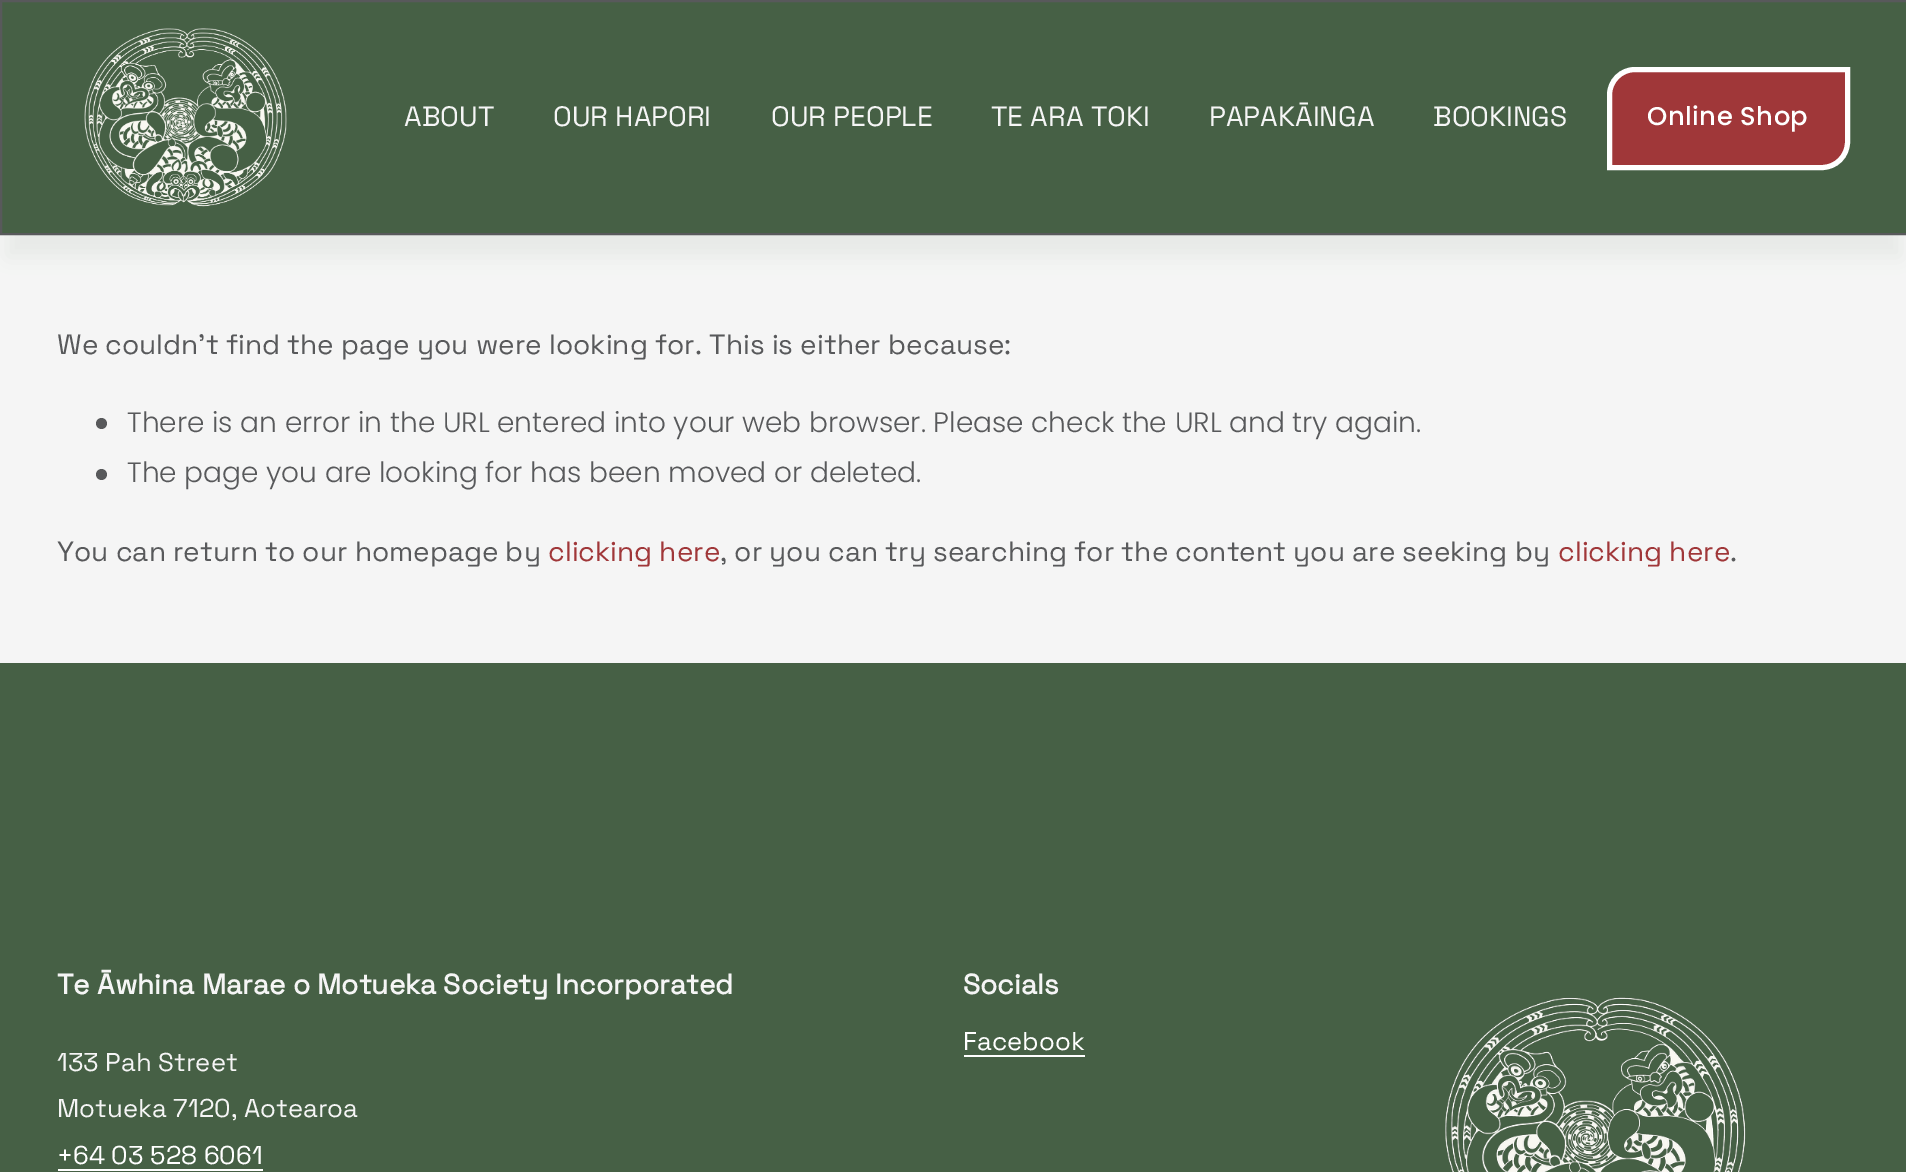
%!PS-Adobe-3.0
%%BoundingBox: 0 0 1906 1172
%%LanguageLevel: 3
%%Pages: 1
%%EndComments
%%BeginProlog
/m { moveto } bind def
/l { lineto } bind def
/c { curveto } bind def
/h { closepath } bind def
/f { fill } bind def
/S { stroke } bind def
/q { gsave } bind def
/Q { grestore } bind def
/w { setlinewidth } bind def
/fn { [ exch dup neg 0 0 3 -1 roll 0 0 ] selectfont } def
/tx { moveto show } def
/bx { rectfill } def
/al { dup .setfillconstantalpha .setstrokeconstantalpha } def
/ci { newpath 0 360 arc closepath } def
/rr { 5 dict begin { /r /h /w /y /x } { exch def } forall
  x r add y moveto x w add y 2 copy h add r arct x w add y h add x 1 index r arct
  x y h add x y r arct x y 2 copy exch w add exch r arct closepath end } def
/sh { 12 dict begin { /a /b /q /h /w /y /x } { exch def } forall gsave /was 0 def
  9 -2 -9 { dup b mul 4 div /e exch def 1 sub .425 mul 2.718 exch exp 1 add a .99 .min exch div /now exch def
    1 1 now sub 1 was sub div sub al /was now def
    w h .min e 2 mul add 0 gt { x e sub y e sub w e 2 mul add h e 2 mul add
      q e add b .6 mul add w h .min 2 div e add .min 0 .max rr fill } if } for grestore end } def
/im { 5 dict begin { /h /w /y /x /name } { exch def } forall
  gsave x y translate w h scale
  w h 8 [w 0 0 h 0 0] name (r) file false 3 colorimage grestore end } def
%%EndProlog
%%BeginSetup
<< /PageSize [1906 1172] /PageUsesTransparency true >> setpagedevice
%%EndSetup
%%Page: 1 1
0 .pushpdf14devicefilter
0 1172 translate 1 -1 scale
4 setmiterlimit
0.961 setgray
0 0 1906 1172 bx
0.859 0.871 0.855 setrgbcolor
7 37 1894 220 0 10.5 0.52 sh
0.275 0.376 0.271 setrgbcolor
1 1 m 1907 1 l 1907 234 l 1 234 l h q f Q
0.345 0.349 0.357 setrgbcolor
2 w
S
(image0.raw) 84 28 203 179 im
/SpaceGrotesk-Regular 28 fn
0.961 setgray
(ABOUT) 404 126 tx
(OUR HAPORI) 553 126 tx
(OUR PEOPLE) 771 126 tx
(TE ARA TOKI) 991 126 tx
(PAPAKĀINGA) 1209 126 tx
(BOOKINGS) 1433 126 tx
0.627 0.216 0.224 setrgbcolor
1635 69.5 m 1847.5 69.5 l 1847.5 142 l 1847.5 156 1836 167.5 1822 167.5 c 1609.5 167.5 l 1609.5 95 l 1609.5 81 1621 69.5 1635 69.5 c h q f Q
1 setgray
5 w
S
/Poppins-Medium 25.75 fn
1647 125 m 0.5 0 (Online Shop) ashow
/SpaceGrotesk-Regular 28 fn
0.345 0.349 0.357 setrgbcolor
(We couldn't find the page you were looking for. This is either because:) 57 354 tx
101.5 423.5 5.5 ci f
/Poppins-Light 28 fn
(There is an error in the URL entered into your web browser. Please check the URL and try again.) 127 432 tx
101.5 474.5 5.5 ci f
(The page you are looking for has been moved or deleted.) 127 482 tx
/SpaceGrotesk-Regular 28 fn
(You can return to our homepage by) 57 561 tx
0.627 0.216 0.224 setrgbcolor
(clicking here) 548 561 tx
0.345 0.349 0.357 setrgbcolor
(, or you can try searching for the content you are seeking by) 720 561 tx
0.627 0.216 0.224 setrgbcolor
(clicking here) 1558 561 tx
0.345 0.349 0.357 setrgbcolor
(.) 1730 561 tx
0.275 0.376 0.271 setrgbcolor
0 663 1906 509 bx
/SpaceGrotesk-Bold 28 fn
0.961 setgray
(Te Āwhina Marae o Motueka Society Incorporated) 57 994 tx
/SpaceGrotesk-Regular 25.75 fn
(133 Pah Street) 57 1071 tx
(Motueka 7120, Aotearoa) 57 1117 tx
1 setgray
(+64 03 528 6061) 57 1164 tx
58 1169 205 2 bx
/SpaceGrotesk-Bold 28 fn
0.961 setgray
(Socials) 963 994 tx
/SpaceGrotesk-Regular 25.75 fn
1 setgray
(Facebook) 963 1050 tx
964 1055 121 2 bx
(image1.raw) 1445 997 301 175 im
.poppdf14devicefilter showpage
%%EOF
